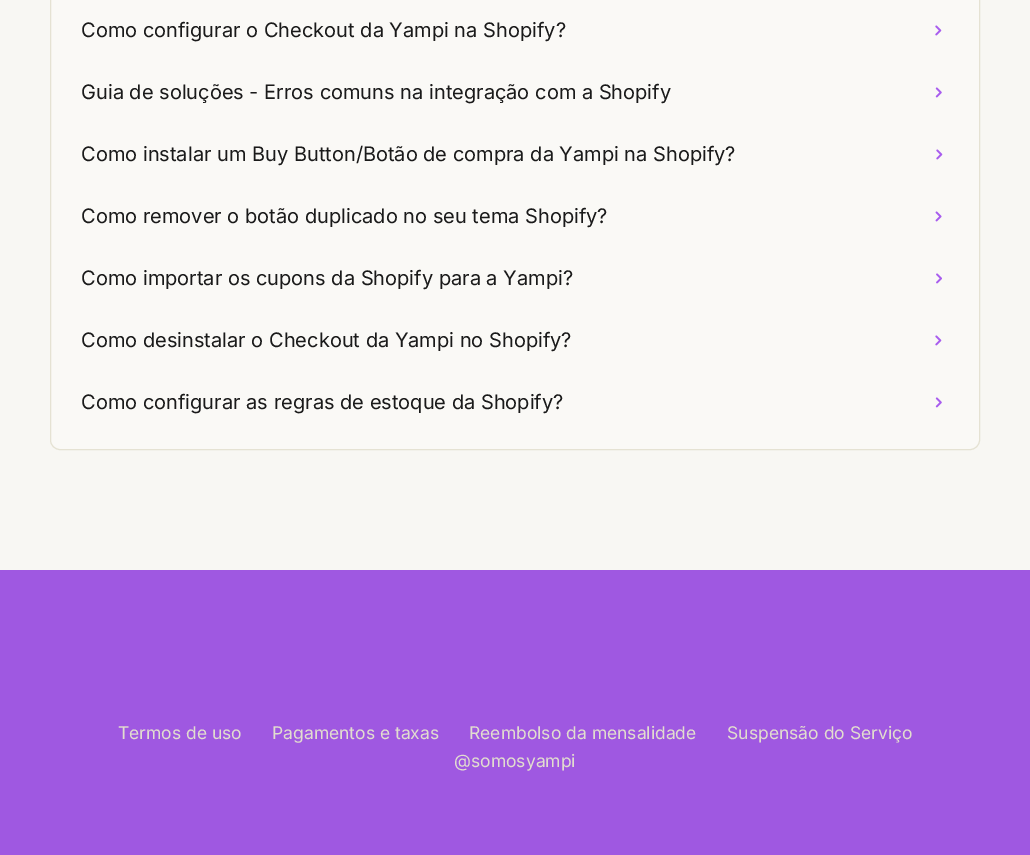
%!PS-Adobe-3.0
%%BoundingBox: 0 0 1030 855
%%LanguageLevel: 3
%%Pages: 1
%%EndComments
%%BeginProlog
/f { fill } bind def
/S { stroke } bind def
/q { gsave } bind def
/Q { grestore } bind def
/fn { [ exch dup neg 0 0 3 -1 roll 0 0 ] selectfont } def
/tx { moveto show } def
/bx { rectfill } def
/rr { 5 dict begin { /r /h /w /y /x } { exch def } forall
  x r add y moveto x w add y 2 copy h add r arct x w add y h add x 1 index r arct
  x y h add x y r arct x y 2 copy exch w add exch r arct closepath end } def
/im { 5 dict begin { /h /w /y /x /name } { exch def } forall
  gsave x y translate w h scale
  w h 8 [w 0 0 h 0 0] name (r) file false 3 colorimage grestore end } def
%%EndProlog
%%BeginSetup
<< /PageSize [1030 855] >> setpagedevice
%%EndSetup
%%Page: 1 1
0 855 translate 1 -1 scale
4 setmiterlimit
0.973 0.969 0.953 setrgbcolor
0 0 1030 855 bx
0.98 0.976 0.965 setrgbcolor
50.5 -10.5 929 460 9.5 rr q f Q
0.898 0.886 0.827 setrgbcolor
S
/Inter-Regular 20 fn
0.102 setgray
(Como configurar o Checkout da Yampi na Shopify?) 81 37 tx
(image0.raw) 935 25 7 11 im
(Guia de soluções - Erros comuns na integração com a Shopify) 81 99 tx
(image1.raw) 935 87 7 11 im
(Como instalar um Buy Button/Botão de compra da Yampi na Shopify?) 81 161 tx
(image2.raw) 936 149 7 11 im
(Como remover o botão duplicado no seu tema Shopify?) 81 223 tx
(image3.raw) 935 211 7 11 im
(Como importar os cupons da Shopify para a Yampi?) 81 285 tx
(image4.raw) 936 273 6 11 im
(Como desinstalar o Checkout da Yampi no Shopify?) 81 347 tx
(image5.raw) 935 335 7 11 im
(Como configurar as regras de estoque da Shopify?) 81 409 tx
(image6.raw) 935 397 7 11 im
0.624 0.345 0.882 setrgbcolor
0 570 1030 285 bx
/Inter-Regular 17.5 fn
0.886 0.867 0.812 setrgbcolor
(Termos de uso) 118 739 tx
(Pagamentos e taxas) 272 739 tx
(Reembolso da mensalidade) 469 739 tx
(Suspensão do Serviço) 727 739 tx
(@somosyampi) 454 767 tx
showpage
%%EOF
